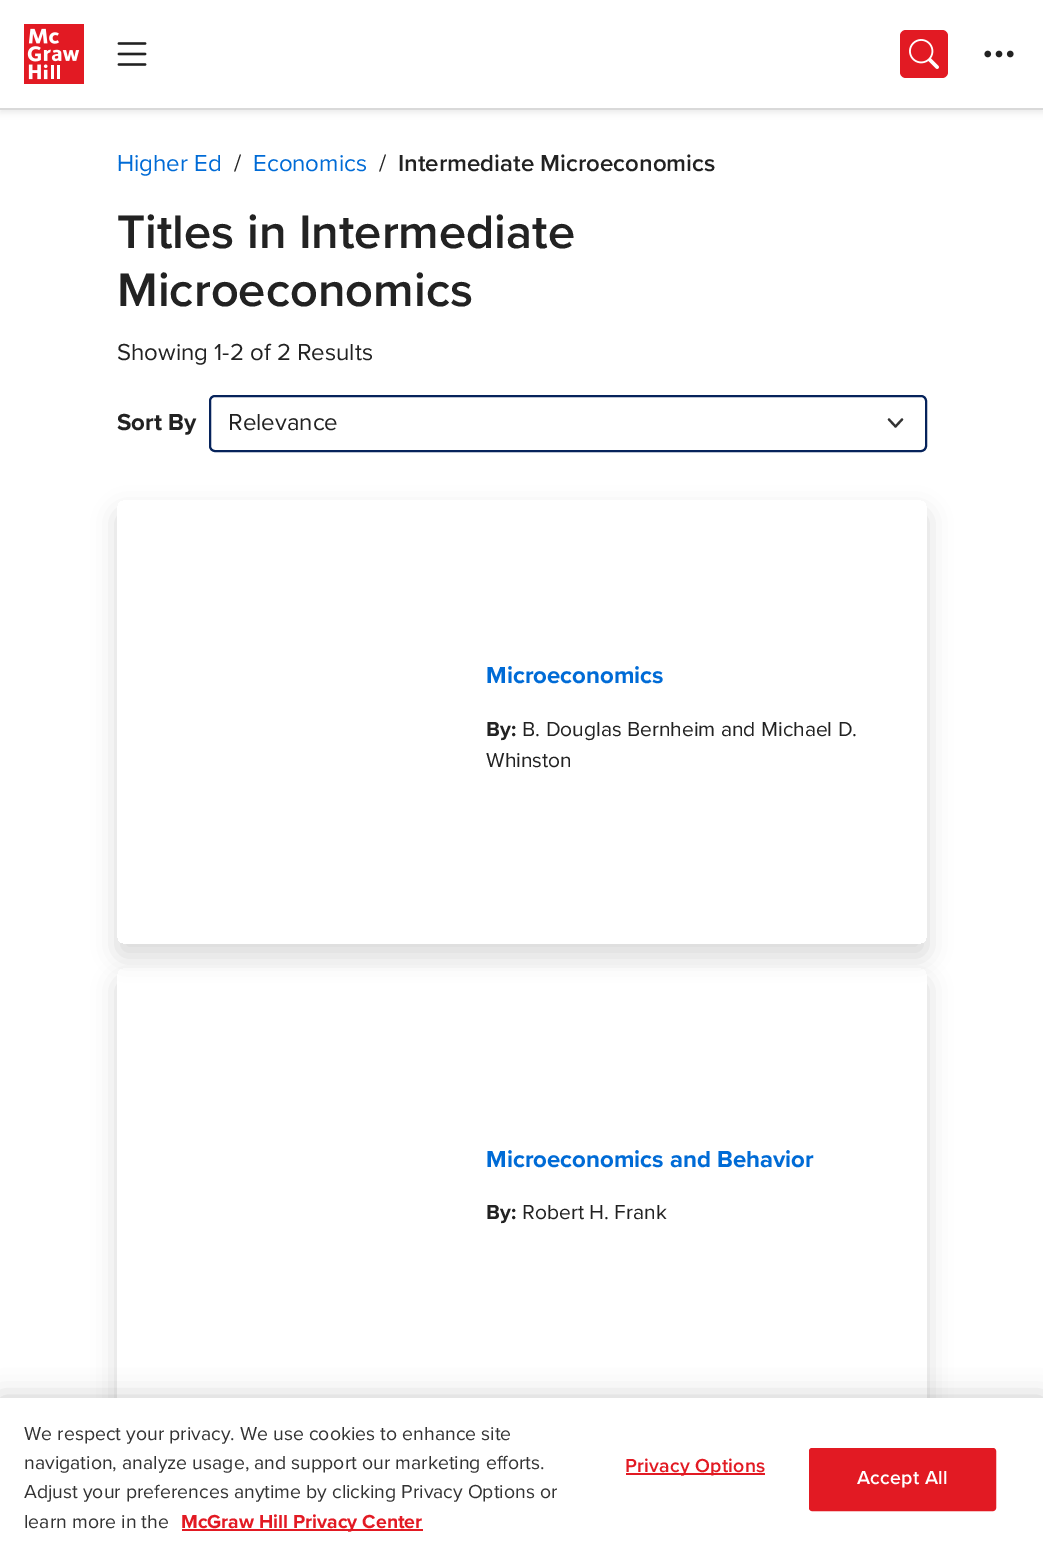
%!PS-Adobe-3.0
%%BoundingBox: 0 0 1043 1560
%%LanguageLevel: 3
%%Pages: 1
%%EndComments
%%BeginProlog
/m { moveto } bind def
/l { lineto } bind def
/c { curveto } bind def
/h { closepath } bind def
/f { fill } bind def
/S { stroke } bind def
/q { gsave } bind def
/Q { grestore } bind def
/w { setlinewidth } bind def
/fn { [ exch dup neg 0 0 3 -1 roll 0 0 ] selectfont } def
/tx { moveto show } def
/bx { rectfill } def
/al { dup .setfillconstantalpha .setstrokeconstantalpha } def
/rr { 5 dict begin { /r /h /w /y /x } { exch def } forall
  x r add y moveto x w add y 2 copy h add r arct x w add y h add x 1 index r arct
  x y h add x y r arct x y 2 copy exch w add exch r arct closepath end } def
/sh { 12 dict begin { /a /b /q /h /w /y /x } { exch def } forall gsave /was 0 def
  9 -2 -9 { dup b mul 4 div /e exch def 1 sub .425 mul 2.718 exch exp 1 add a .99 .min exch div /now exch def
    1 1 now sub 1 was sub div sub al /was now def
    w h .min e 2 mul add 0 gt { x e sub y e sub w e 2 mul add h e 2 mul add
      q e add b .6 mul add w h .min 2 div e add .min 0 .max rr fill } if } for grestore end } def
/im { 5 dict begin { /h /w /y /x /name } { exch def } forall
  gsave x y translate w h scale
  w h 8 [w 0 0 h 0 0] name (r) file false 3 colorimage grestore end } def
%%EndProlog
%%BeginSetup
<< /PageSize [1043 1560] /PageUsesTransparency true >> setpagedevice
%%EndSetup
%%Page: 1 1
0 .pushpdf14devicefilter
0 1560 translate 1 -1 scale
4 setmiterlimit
1 setgray
0 0 1043 1560 bx
0 setgray
0 3 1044 110 0 3 0.07 sh
1 setgray
0 0 1043 108 bx
0.851 setgray
0 108 1043 2 bx
(image0.raw) 24 24 60 60 im
(image1.raw) 117 42 30 24 im
0.886 0.102 0.137 setrgbcolor
900 30 48 48 6 rr f
(image2.raw) 909 39 30 30 im
(image3.raw) 984 50 30 8 im
/ProximaNova-Regular 24 fn
0 0.42 0.839 setrgbcolor
(Higher Ed) 117 171 tx
0.133 setgray
(/) 234 171 tx
0 0.42 0.839 setrgbcolor
(Economics) 253 171 tx
0.133 setgray
(/) 379 171 tx
/ProximaNova-SemiBold 24 fn
(Intermediate Microeconomics) 398 171 tx
/ProximaNova-SemiBold 48.75 fn
(Titles in Intermediate) 117 248 tx
(Microeconomics) 117 306 tx
/ProximaNova-Regular 24 fn
(Showing 1-2 of 2 Results) 117 360 tx
/ProximaNova-Bold 24 fn
(Sort By) 117 430 tx
0.2 setgray
2.2 w
1 setlinecap
1 setlinejoin
889 419.5 m 895.5 426.5 l 902 419.5 l S
0.024 0.137 0.357 setrgbcolor
2 w
0 setlinecap
0 setlinejoin
210 396 716 55 5 rr S
/ProximaNova-Regular 24 fn
0.133 setgray
(Relevance) 228 430 tx
q
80 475 m 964 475 l 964 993 l 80 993 l h 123 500 m 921 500 l 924.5 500 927 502.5 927 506 c 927 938 l 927 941.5 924.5 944 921 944 c 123 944 l 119.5 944 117 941.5 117 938 c 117 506 l 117 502.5 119.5 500 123 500 c h eoclip newpath
0 setgray
117 512 810 444 6 12 0.15 sh
Q
/ProximaNova-Bold 24 fn
0 0.42 0.839 setrgbcolor
(Microeconomics) 486 683 tx
/ProximaNova-Bold 21 fn
0.133 setgray
(By:) 486 736 tx
/ProximaNova-Regular 21 fn
(B. Douglas Bernheim and Michael D.) 522 736 tx
(Whinston) 486 767 tx
q
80 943 m 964 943 l 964 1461 l 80 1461 l h 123 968 m 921 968 l 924.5 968 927 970.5 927 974 c 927 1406 l 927 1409.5 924.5 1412 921 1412 c 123 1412 l 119.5 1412 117 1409.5 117 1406 c 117 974 l 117 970.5 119.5 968 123 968 c h eoclip newpath
0 setgray
117 980 810 444 6 12 0.15 sh
Q
/ProximaNova-Bold 24 fn
0 0.42 0.839 setrgbcolor
(Microeconomics and Behavior) 486 1167 tx
/ProximaNova-Bold 21 fn
0.133 setgray
(By:) 486 1219 tx
/ProximaNova-Regular 21 fn
(Robert H. Frank) 522 1219 tx
0 setgray
0 1398 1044 162 0 13.5 0.2 sh
1 setgray
0 1398 1043 162 bx
/ProximaNova-Regular 19.5 fn
0.2 setgray
(We respect your privacy. We use cookies to enhance site) 24 1440 tx
(navigation, analyze usage, and support our marketing efforts.) 24 1469 tx
(Adjust your preferences anytime by clicking Privacy Options or) 24 1498 tx
(learn more in the) 24 1528 tx
0.886 0.102 0.137 setrgbcolor
182 1529 241 2 bx
/ProximaNova-Bold 19.5 fn
(McGraw Hill Privacy Center) 181 1528 tx
626 1473 139 2 bx
/ProximaNova-SemiBold 19.5 fn
625 1472 m 0.25 0 (Privacy Options) ashow
810 1449 185 61 2 rr q f Q
S
1 setgray
857 1484 m 0.25 0 (Accept All) ashow
.poppdf14devicefilter showpage
%%EOF
